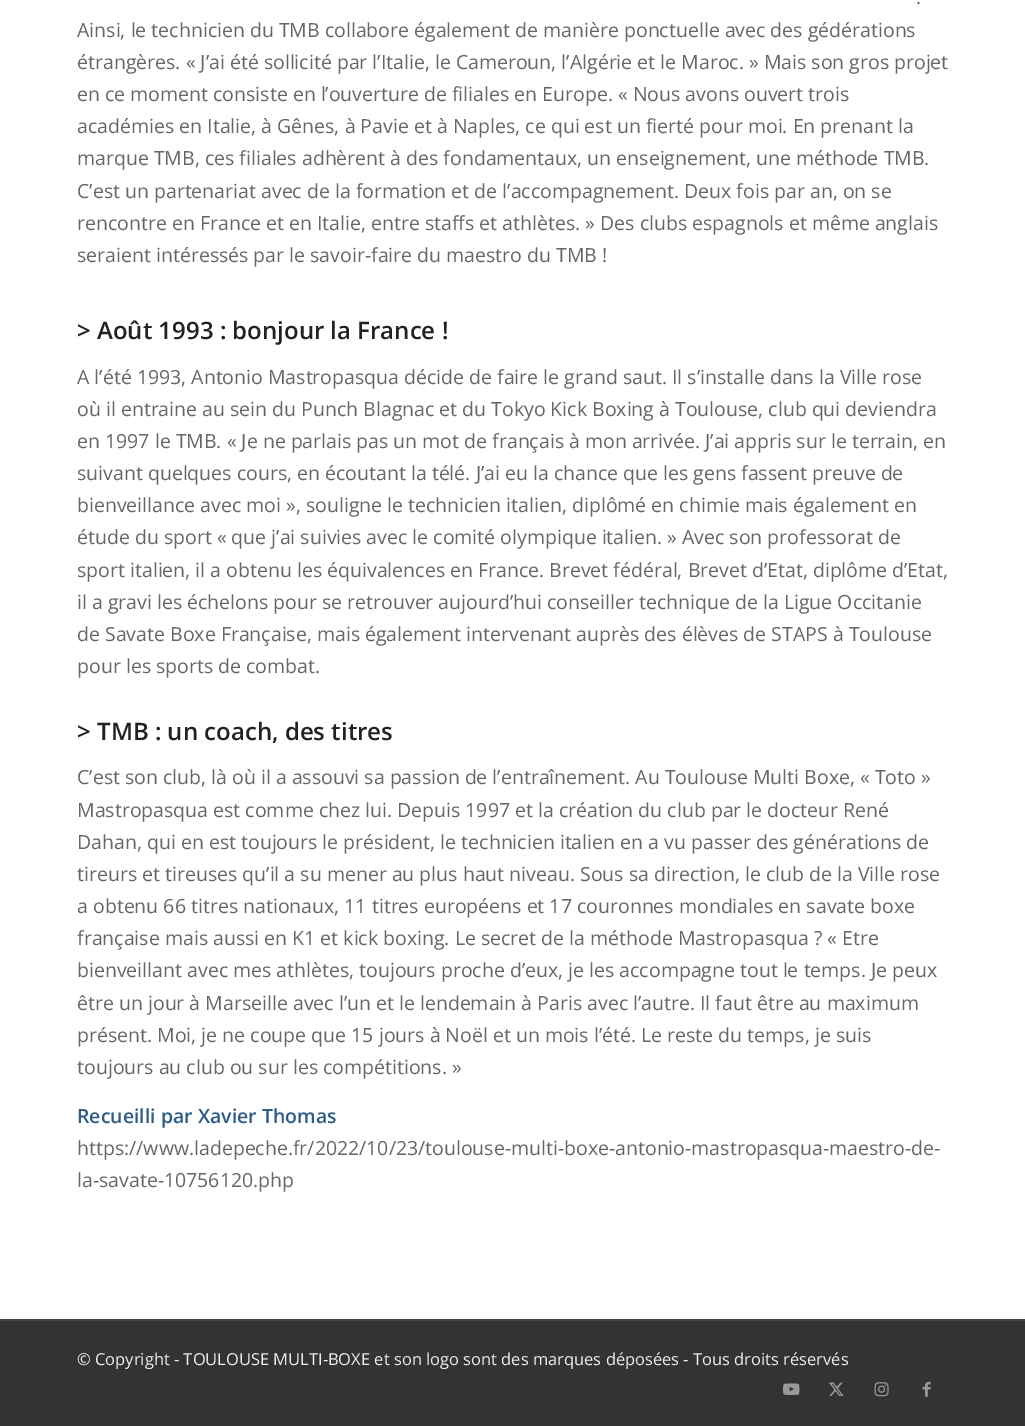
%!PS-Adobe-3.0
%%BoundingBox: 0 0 1025 1426
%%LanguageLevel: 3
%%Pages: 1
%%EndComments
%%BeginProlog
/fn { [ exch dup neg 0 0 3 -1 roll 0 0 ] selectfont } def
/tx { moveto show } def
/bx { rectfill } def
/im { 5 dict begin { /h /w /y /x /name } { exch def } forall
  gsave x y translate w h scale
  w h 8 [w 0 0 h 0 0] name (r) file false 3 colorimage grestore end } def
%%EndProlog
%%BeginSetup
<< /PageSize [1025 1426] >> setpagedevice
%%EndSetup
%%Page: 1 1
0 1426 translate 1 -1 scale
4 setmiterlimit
1 setgray
0 0 1025 1426 bx
/OpenSans-Regular 19.5 fn
0.4 setgray
(.) 916 4 tx
(Ainsi, le technicien du TMB collabore également de manière ponctuelle avec des gédérations) 77 37 tx
(étrangères. « J’ai été sollicité par l’Italie, le Cameroun, l’Algérie et le Maroc. » Mais son gros projet) 77 69 tx
(en ce moment consiste en l’ouverture de filiales en Europe. « Nous avons ouvert trois) 77 101 tx
(académies en Italie, à Gênes, à Pavie et à Naples, ce qui est un fierté pour moi. En prenant la) 77 133 tx
(marque TMB, ces filiales adhèrent à des fondamentaux, un enseignement, une méthode TMB.) 77 165 tx
(C’est un partenariat avec de la formation et de l’accompagnement. Deux fois par an, on se) 77 198 tx
(rencontre en France et en Italie, entre staffs et athlètes. » Des clubs espagnols et même anglais) 77 230 tx
(seraient intéressés par le savoir-faire du maestro du TMB !) 77 262 tx
/OpenSans-SemiBold 24 fn
0.133 setgray
(> Août 1993 : bonjour la France !) 77 339 tx
/OpenSans-Regular 19.5 fn
0.4 setgray
(A l’été 1993, Antonio Mastropasqua décide de faire le grand saut. Il s’installe dans la Ville rose) 77 384 tx
(où il entraine au sein du Punch Blagnac et du Tokyo Kick Boxing à Toulouse, club qui deviendra) 77 416 tx
(en 1997 le TMB. « Je ne parlais pas un mot de français à mon arrivée. J’ai appris sur le terrain, en) 77 448 tx
(suivant quelques cours, en écoutant la télé. J’ai eu la chance que les gens fassent preuve de) 77 480 tx
(bienveillance avec moi », souligne le technicien italien, diplômé en chimie mais également en) 77 512 tx
(étude du sport « que j’ai suivies avec le comité olympique italien. » Avec son professorat de) 77 544 tx
(sport italien, il a obtenu les équivalences en France. Brevet fédéral, Brevet d’Etat, diplôme d’Etat,) 77 577 tx
(il a gravi les échelons pour se retrouver aujourd’hui conseiller technique de la Ligue Occitanie) 77 609 tx
(de Savate Boxe Française, mais également intervenant auprès des élèves de STAPS à Toulouse) 77 641 tx
(pour les sports de combat.) 77 673 tx
/OpenSans-SemiBold 24 fn
0.133 setgray
(> TMB : un coach, des titres) 77 740 tx
/OpenSans-Regular 19.5 fn
0.4 setgray
(C’est son club, là où il a assouvi sa passion de l’entraînement. Au Toulouse Multi Boxe, « Toto ») 77 784 tx
(Mastropasqua est comme chez lui. Depuis 1997 et la création du club par le docteur René) 77 817 tx
(Dahan, qui en est toujours le président, le technicien italien en a vu passer des générations de) 77 849 tx
(tireurs et tireuses qu’il a su mener au plus haut niveau. Sous sa direction, le club de la Ville rose) 77 881 tx
(a obtenu 66 titres nationaux, 11 titres européens et 17 couronnes mondiales en savate boxe) 77 913 tx
(française mais aussi en K1 et kick boxing. Le secret de la méthode Mastropasqua ? « Etre) 77 945 tx
(bienveillant avec mes athlètes, toujours proche d’eux, je les accompagne tout le temps. Je peux) 77 977 tx
(être un jour à Marseille avec l’un et le lendemain à Paris avec l’autre. Il faut être au maximum) 77 1010 tx
(présent. Moi, je ne coupe que 15 jours à Noël et un mois l’été. Le reste du temps, je suis) 77 1042 tx
(toujours au club ou sur les compétitions. ») 77 1074 tx
/OpenSans-SemiBold 19.5 fn
0.176 0.361 0.533 setrgbcolor
(Recueilli par Xavier Thomas) 77 1123 tx
/OpenSans-Regular 19.5 fn
0.4 setgray
(https://www.ladepeche.fr/2022/10/23/toulouse-multi-boxe-antonio-mastropasqua-maestro-de-) 77 1155 tx
(la-savate-10756120.php) 77 1187 tx
0.2 setgray
0 1321 1025 105 bx
0.267 setgray
0 1319 1025 2 bx
/OpenSans-Regular 16.5 fn
0.933 setgray
(© Copyright - TOULOUSE MULTI-BOXE et son logo sont des marques déposées - Tous droits réservés) 77 1365 tx
(image0.raw) 783 1383 17 12 im
(image1.raw) 829 1382 15 14 im
(image2.raw) 874 1382 15 15 im
(image3.raw) 922 1381 9 16 im
showpage
%%EOF
